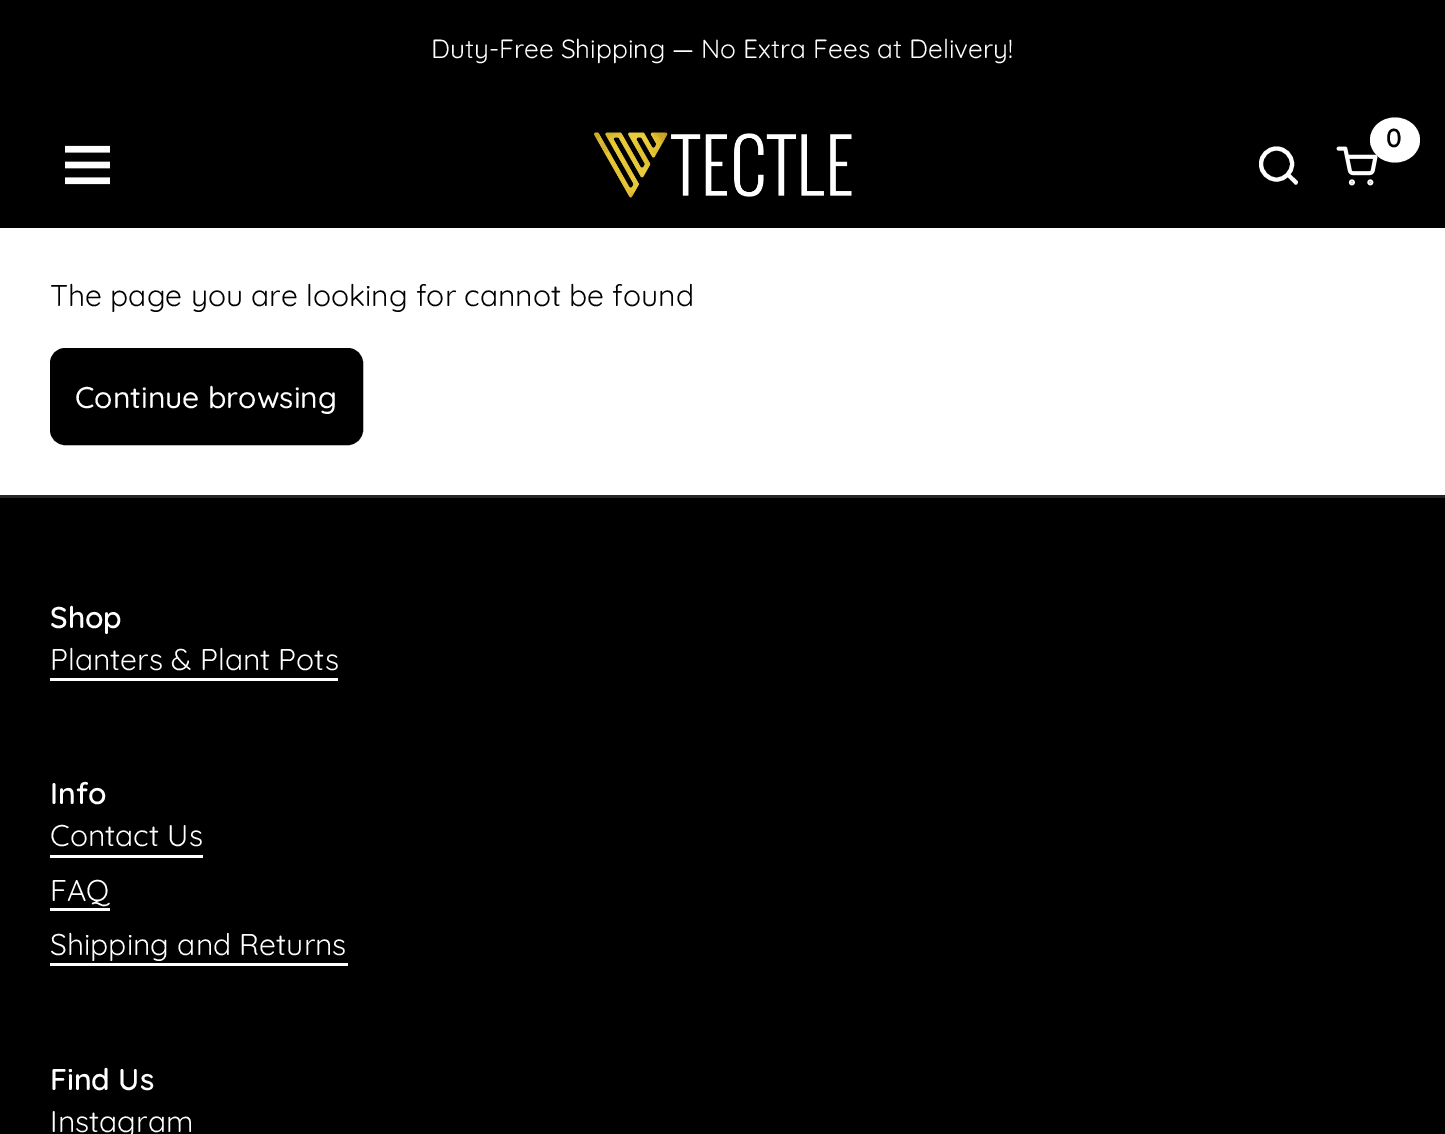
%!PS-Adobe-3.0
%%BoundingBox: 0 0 1445 1134
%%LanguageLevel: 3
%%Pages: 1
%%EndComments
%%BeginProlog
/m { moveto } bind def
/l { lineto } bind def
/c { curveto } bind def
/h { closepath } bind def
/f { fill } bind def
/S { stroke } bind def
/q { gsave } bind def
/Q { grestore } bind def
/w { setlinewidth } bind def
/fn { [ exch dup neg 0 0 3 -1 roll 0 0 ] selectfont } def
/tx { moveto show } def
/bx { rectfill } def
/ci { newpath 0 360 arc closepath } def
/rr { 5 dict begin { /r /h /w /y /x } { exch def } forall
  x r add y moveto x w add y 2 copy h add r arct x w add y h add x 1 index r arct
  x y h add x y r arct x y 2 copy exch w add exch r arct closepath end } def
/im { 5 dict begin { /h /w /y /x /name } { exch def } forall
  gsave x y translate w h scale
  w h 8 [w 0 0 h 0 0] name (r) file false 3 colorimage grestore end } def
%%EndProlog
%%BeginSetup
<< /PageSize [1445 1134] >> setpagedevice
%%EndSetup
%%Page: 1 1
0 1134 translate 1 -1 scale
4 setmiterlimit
1 setgray
0 0 1445 1134 bx
0 setgray
0 0 1445 228 bx
/Quicksand-Regular 26.25 fn
1 setgray
(Duty-Free Shipping — No Extra Fees at Delivery!) 431 58 tx
(image0.raw) 65 145 45 40 im
(image1.raw) 594 132 258 66 im
4.1 w
1276.5 164 15.5 ci S
1290 174 m 1288.5 172.5 l 1285.5 175 l 1287 176.5 l h 1294.5 184 m 1296 186 1299 183 1297.5 181 c h 1287 176.5 m 1294.5 184 l 1297.5 181 l 1290 174 l h f
1395 117.5 m 1409 117.5 1420 127.5 1420 140 c 1420 152.5 1409 162.5 1395 162.5 c 1381 162.5 1370 152.5 1370 140 c 1370 127.5 1381 117.5 1395 117.5 c h f
/Quicksand-SemiBold 26 fn
0 setgray
(0) 1386 147 tx
(image2.raw) 1336 146 42 40 im
/Quicksand-Regular 30 fn
(The page you are looking for cannot be found) 50 306 tx
51.5 349.5 310 94 13.5 rr q f Q
3 w
S
/Quicksand-Medium 30 fn
1 setgray
(Continue browsing) 75 408 tx
0 setgray
0 498 1445 636 bx
0.149 setgray
0 495 1445 3 bx
/Quicksand-SemiBold 30 fn
1 setgray
(Shop) 50 628 tx
/Quicksand-Regular 30 fn
(Planters & Plant Pots) 50 670 tx
50 678 288 3 bx
/Quicksand-SemiBold 30 fn
(Info) 50 804 tx
/Quicksand-Regular 30 fn
(Contact Us) 50 846 tx
50 855 153 3 bx
(FAQ) 50 901 tx
50 908 60 3 bx
(Shipping and Returns) 50 955 tx
50 963 298 3 bx
/Quicksand-SemiBold 30 fn
(Find Us) 50 1090 tx
/Quicksand-Regular 30 fn
(Instagram) 50 1132 tx
showpage
%%EOF
